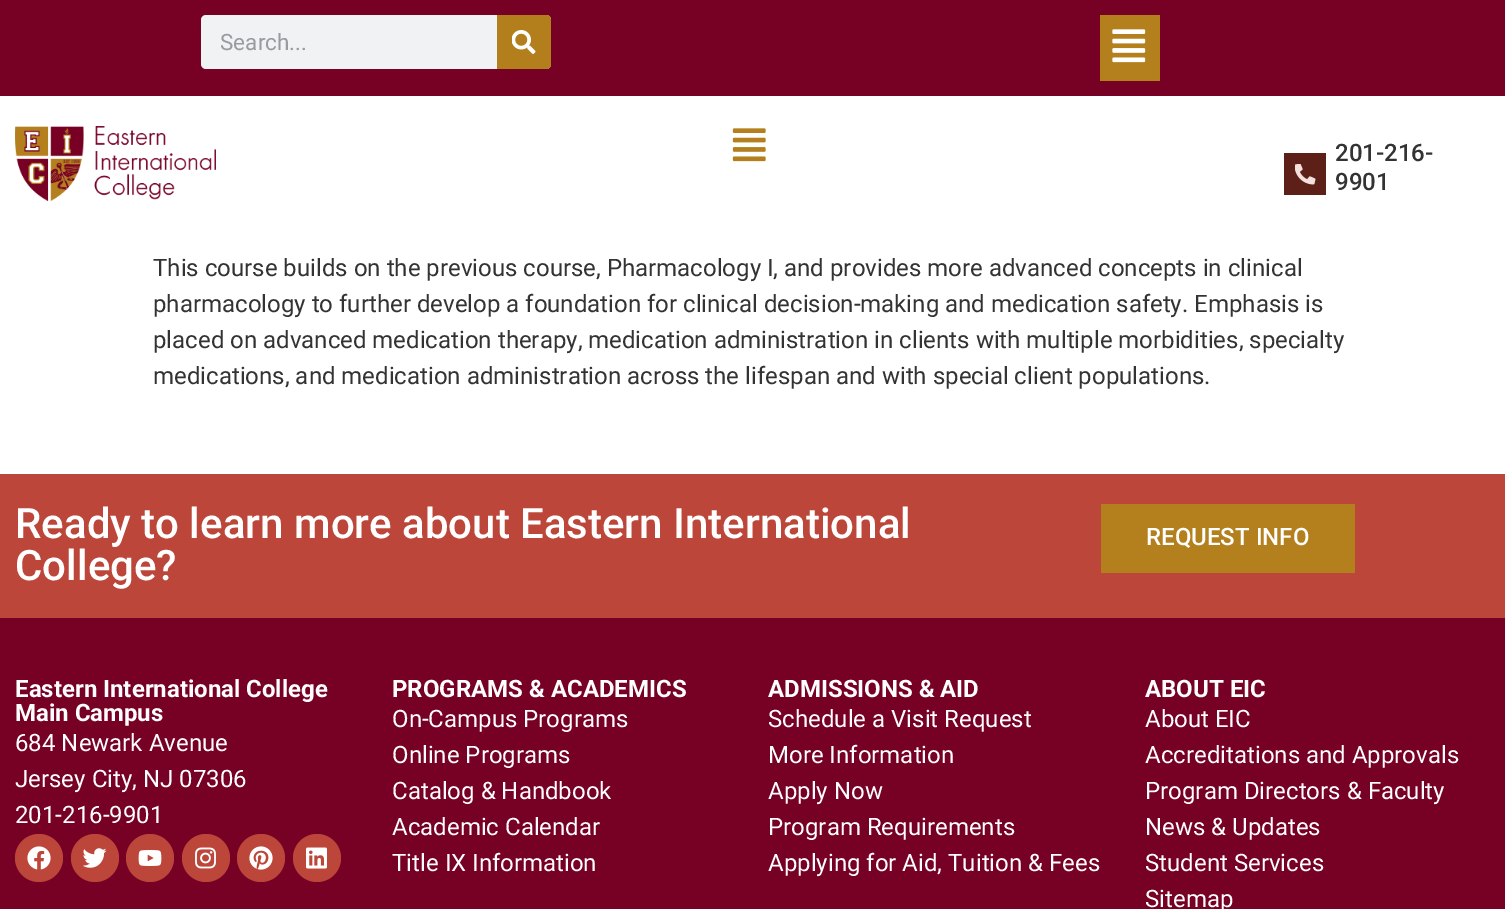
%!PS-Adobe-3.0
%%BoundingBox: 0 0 1505 909
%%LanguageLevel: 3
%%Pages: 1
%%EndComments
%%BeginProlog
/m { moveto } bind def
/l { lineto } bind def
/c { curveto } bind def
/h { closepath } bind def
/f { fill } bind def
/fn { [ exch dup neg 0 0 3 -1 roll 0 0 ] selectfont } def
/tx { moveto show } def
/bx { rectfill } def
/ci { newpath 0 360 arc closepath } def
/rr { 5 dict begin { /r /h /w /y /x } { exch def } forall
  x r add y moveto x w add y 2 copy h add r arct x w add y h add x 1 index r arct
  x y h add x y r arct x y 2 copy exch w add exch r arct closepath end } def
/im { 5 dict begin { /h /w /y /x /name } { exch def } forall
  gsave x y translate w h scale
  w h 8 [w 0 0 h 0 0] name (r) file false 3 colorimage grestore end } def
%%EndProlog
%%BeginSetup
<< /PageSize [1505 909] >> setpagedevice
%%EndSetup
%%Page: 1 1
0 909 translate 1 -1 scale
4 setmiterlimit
1 setgray
0 0 1505 909 bx
0.467 0 0.145 setrgbcolor
0 0 1505 96 bx
0.945 0.949 0.953 setrgbcolor
201 15 350 54 5 rr f
/Roboto-Regular 22.5 fn
0.596 0.608 0.624 setrgbcolor
(Search...) 220 50 tx
0.702 0.498 0.114 setrgbcolor
497 15 m 546 15 l 549 15 551 17 551 20 c 551 64 l 551 67 549 69 546 69 c 497 69 l h f
(image0.raw) 512 30 24 24 im
0.702 0.502 0.114 setrgbcolor
1100 15 60 66 bx
(image1.raw) 1112 29 34 34 im
(image2.raw) 15 126 201 75 im
(image3.raw) 732 128 34 34 im
0.361 0.125 0.094 setrgbcolor
1284 153 42 42 bx
(image4.raw) 1295 164 21 21 im
/Roboto-Medium 24 fn
0.2 setgray
(201-216-) 1335 161 tx
(9901) 1335 190 tx
/Roboto-Regular 24 fn
(This course builds on the previous course, Pharmacology I, and provides more advanced concepts in clinical) 153 276 tx
(pharmacology to further develop a foundation for clinical decision-making and medication safety. Emphasis is) 153 312 tx
(placed on advanced medication therapy, medication administration in clients with multiple morbidities, specialty) 153 348 tx
(medications, and medication administration across the lifespan and with special client populations.) 153 384 tx
0.737 0.275 0.224 setrgbcolor
0 474 1505 144 bx
/Roboto-Medium 42 fn
1 setgray
(Ready to learn more about Eastern International) 15 538 tx
(College?) 15 580 tx
0.702 0.502 0.114 setrgbcolor
1101 504 254 69 bx
/Roboto-Medium 24 fn
1 setgray
(REQUEST INFO) 1146 545 tx
0.467 0 0.145 setrgbcolor
0 618 1505 291 bx
/Roboto-Bold 24 fn
1 setgray
(Eastern International College) 15 697 tx
(Main Campus) 15 721 tx
/Roboto-Regular 24 fn
(684 Newark Avenue) 15 751 tx
(Jersey City, NJ 07306) 15 787 tx
(201-216-9901) 15 823 tx
0.737 0.275 0.224 setrgbcolor
39 858 24 ci f
(image5.raw) 27 846 24 24 im
95 858 24 ci f
(image6.raw) 83 848 24 20 im
150 858 24 ci f
(image7.raw) 138 850 24 16 im
206 858 24 ci f
(image8.raw) 195 847 21 22 im
261 858 24 ci f
(image9.raw) 249 846 24 24 im
317 858 24 ci f
(image10.raw) 306 847 21 22 im
/Roboto-Bold 24 fn
1 setgray
(PROGRAMS & ACADEMICS) 392 697 tx
/Roboto-Regular 24 fn
(On-Campus Programs) 392 727 tx
(Online Programs) 392 763 tx
(Catalog & Handbook) 392 799 tx
(Academic Calendar) 392 835 tx
(Title IX Information) 392 871 tx
/Roboto-Bold 24 fn
(ADMISSIONS & AID) 768 697 tx
/Roboto-Regular 24 fn
(Schedule a Visit Request) 768 727 tx
(More Information) 768 763 tx
(Apply Now) 768 799 tx
(Program Requirements) 768 835 tx
(Applying for Aid, Tuition & Fees) 768 871 tx
/Roboto-Bold 24 fn
(ABOUT EIC) 1145 697 tx
/Roboto-Regular 24 fn
(About EIC) 1145 727 tx
(Accreditations and Approvals) 1145 763 tx
(Program Directors & Faculty) 1145 799 tx
(News & Updates) 1145 835 tx
(Student Services) 1145 871 tx
(Sitemap) 1145 907 tx
showpage
%%EOF
